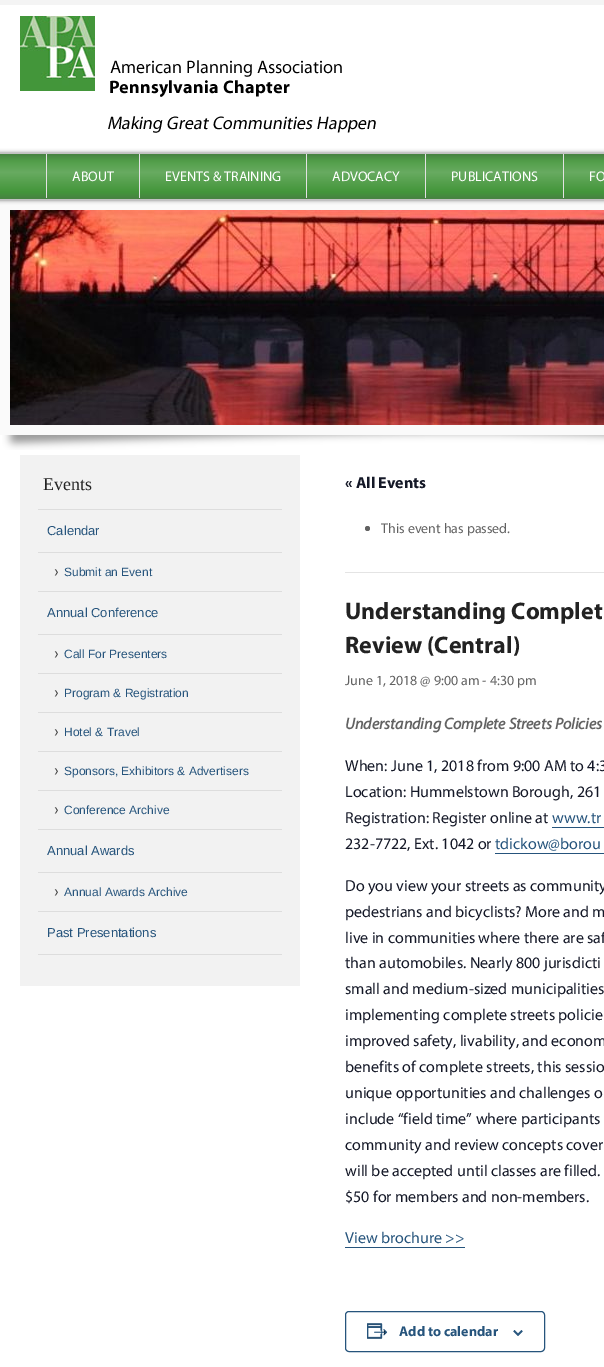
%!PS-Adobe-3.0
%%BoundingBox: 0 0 604 1367
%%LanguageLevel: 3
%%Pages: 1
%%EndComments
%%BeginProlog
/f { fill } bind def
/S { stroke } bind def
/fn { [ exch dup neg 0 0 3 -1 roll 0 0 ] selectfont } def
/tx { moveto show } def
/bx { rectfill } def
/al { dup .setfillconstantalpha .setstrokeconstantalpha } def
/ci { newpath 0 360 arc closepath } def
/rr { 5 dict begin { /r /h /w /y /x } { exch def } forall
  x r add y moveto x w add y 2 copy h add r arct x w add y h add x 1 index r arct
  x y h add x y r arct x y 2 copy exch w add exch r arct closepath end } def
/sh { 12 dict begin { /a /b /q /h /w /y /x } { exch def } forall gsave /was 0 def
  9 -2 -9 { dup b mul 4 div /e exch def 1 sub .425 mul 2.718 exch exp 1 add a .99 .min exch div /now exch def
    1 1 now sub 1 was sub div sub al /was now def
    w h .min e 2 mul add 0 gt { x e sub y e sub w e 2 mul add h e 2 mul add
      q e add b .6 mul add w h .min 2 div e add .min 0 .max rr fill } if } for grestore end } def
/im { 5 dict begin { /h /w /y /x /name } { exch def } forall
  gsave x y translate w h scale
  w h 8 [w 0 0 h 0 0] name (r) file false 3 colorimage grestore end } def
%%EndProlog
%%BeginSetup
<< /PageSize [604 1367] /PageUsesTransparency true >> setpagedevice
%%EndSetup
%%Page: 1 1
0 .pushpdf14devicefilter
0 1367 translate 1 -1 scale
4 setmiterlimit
1 setgray
0 0 604 1367 bx
0.957 setgray
0 0 604 5 bx
(image0.raw) 20 16 356 117 im
(image2.raw) 0 200 604 250 im
0 setgray
-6 153 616 47 0 2 0.55 sh
(image1.raw) 0 154 604 45 im
0.761 setgray
0 153 604 1 bx
0 199 604 1 bx
0.886 setgray
139 154 1 44 bx
46 154 1 44 bx
/Myriad-Regular 14 fn
1 setgray
(ABOUT) 72 181 tx
0.886 setgray
306 154 1 44 bx
1 setgray
(EVENTS & TRAINING) 165 181 tx
0.886 setgray
425 154 1 44 bx
1 setgray
(ADVOCACY) 332 181 tx
0.886 setgray
563 154 1 44 bx
1 setgray
(PUBLICATIONS) 451 181 tx
(FO) 589 181 tx
(image3.raw) 10 210 594 215 im
0.949 setgray
20 455 280 531 bx
/LiberationSerif-Regular 18 fn
0.133 setgray
(Events) 43 490 tx
0.867 setgray
38 954 244 1 bx
38 509 244 1 bx
/LiberationSans-Regular 13 fn
0.149 0.329 0.486 setrgbcolor
(Calendar) 47 535 tx
(image4.raw) 54 569 4 7 im
0.867 setgray
38 552 244 1 bx
/LiberationSans-Regular 12 fn
0.149 0.329 0.486 setrgbcolor
(Submit an Event) 64 576 tx
0.867 setgray
38 591 244 1 bx
/LiberationSans-Regular 13 fn
0.149 0.329 0.486 setrgbcolor
(Annual Conference) 47 617 tx
(image4.raw) 54 651 4 7 im
0.867 setgray
38 634 244 1 bx
/LiberationSans-Regular 12 fn
0.149 0.329 0.486 setrgbcolor
(Call For Presenters) 64 658 tx
(image4.raw) 54 690 4 7 im
0.867 setgray
38 673 244 1 bx
0.149 0.329 0.486 setrgbcolor
(Program & Registration) 64 697 tx
(image4.raw) 54 729 4 7 im
0.867 setgray
38 712 244 1 bx
0.149 0.329 0.486 setrgbcolor
(Hotel & Travel) 64 736 tx
(image4.raw) 54 768 4 7 im
0.867 setgray
38 751 244 1 bx
0.149 0.329 0.486 setrgbcolor
(Sponsors, Exhibitors & Advertisers) 64 775 tx
(image4.raw) 54 807 4 7 im
0.867 setgray
38 790 244 1 bx
0.149 0.329 0.486 setrgbcolor
(Conference Archive) 64 814 tx
0.867 setgray
38 829 244 1 bx
/LiberationSans-Regular 13 fn
0.149 0.329 0.486 setrgbcolor
(Annual Awards) 47 855 tx
(image4.raw) 54 889 4 7 im
0.867 setgray
38 872 244 1 bx
/LiberationSans-Regular 12 fn
0.149 0.329 0.486 setrgbcolor
(Annual Awards Archive) 64 896 tx
0.867 setgray
38 911 244 1 bx
/LiberationSans-Regular 13 fn
0.149 0.329 0.486 setrgbcolor
(Past Presentations) 47 937 tx
/Myriad-Bold 16 fn
0.078 0.094 0.153 setrgbcolor
(« All Events) 345 488 tx
0.894 setgray
345 572 259 1 bx
0.384 setgray
367.5 528.5 2.5 ci f
/Myriad-Regular 14 fn
(This event has passed.) 381 533 tx
/Myriad-Bold 24 fn
0.133 setgray
(Understanding Complet) 345 619 tx
(Review \(Central\)) 345 653 tx
/Myriad-Regular 14 fn
0.384 setgray
(June 1, 2018 @ 9:00 am - 4:30 pm) 345 685 tx
/Myriad-BoldItalic 16 fn
(Understanding Complete Streets Policies) 345 729 tx
/Myriad-Regular 16 fn
0.078 0.094 0.153 setrgbcolor
(When: June 1, 2018 from 9:00 AM to 4:3) 345 771 tx
(Location: Hummelstown Borough, 261) 345 797 tx
(Registration: Register online at) 345 823 tx
0.149 0.329 0.486 setrgbcolor
(www.tr) 552 823 tx
552 827 52 1 bx
0.078 0.094 0.153 setrgbcolor
(232-7722, Ext. 1042 or) 345 849 tx
0.149 0.329 0.486 setrgbcolor
(tdickow@borou) 495 849 tx
495 853 109 1 bx
0.078 0.094 0.153 setrgbcolor
(Do you view your streets as community) 345 891 tx
(pedestrians and bicyclists? More and m) 345 917 tx
(live in communities where there are saf) 345 943 tx
(than automobiles. Nearly 800 jurisdicti) 345 968 tx
(small and medium-sized municipalities) 345 994 tx
(implementing complete streets policie) 345 1020 tx
(improved safety, livability, and econom) 345 1046 tx
(benefits of complete streets, this sessio) 345 1072 tx
(unique opportunities and challenges o) 345 1098 tx
(include “field time” where participants) 345 1124 tx
(community and review concepts cover) 345 1150 tx
(will be accepted until classes are filled.) 345 1176 tx
($50 for members and non-members.) 345 1202 tx
0.149 0.329 0.486 setrgbcolor
(View brochure >>) 345 1243 tx
345 1247 120 1 bx
345.5 1311.5 199 40 3.5 rr S
(image5.raw) 367 1323 21 16 im
/Myriad-Bold 14 fn
(Add to calendar) 399 1336 tx
(image6.raw) 513 1330 10 6 im
.poppdf14devicefilter showpage
%%EOF
